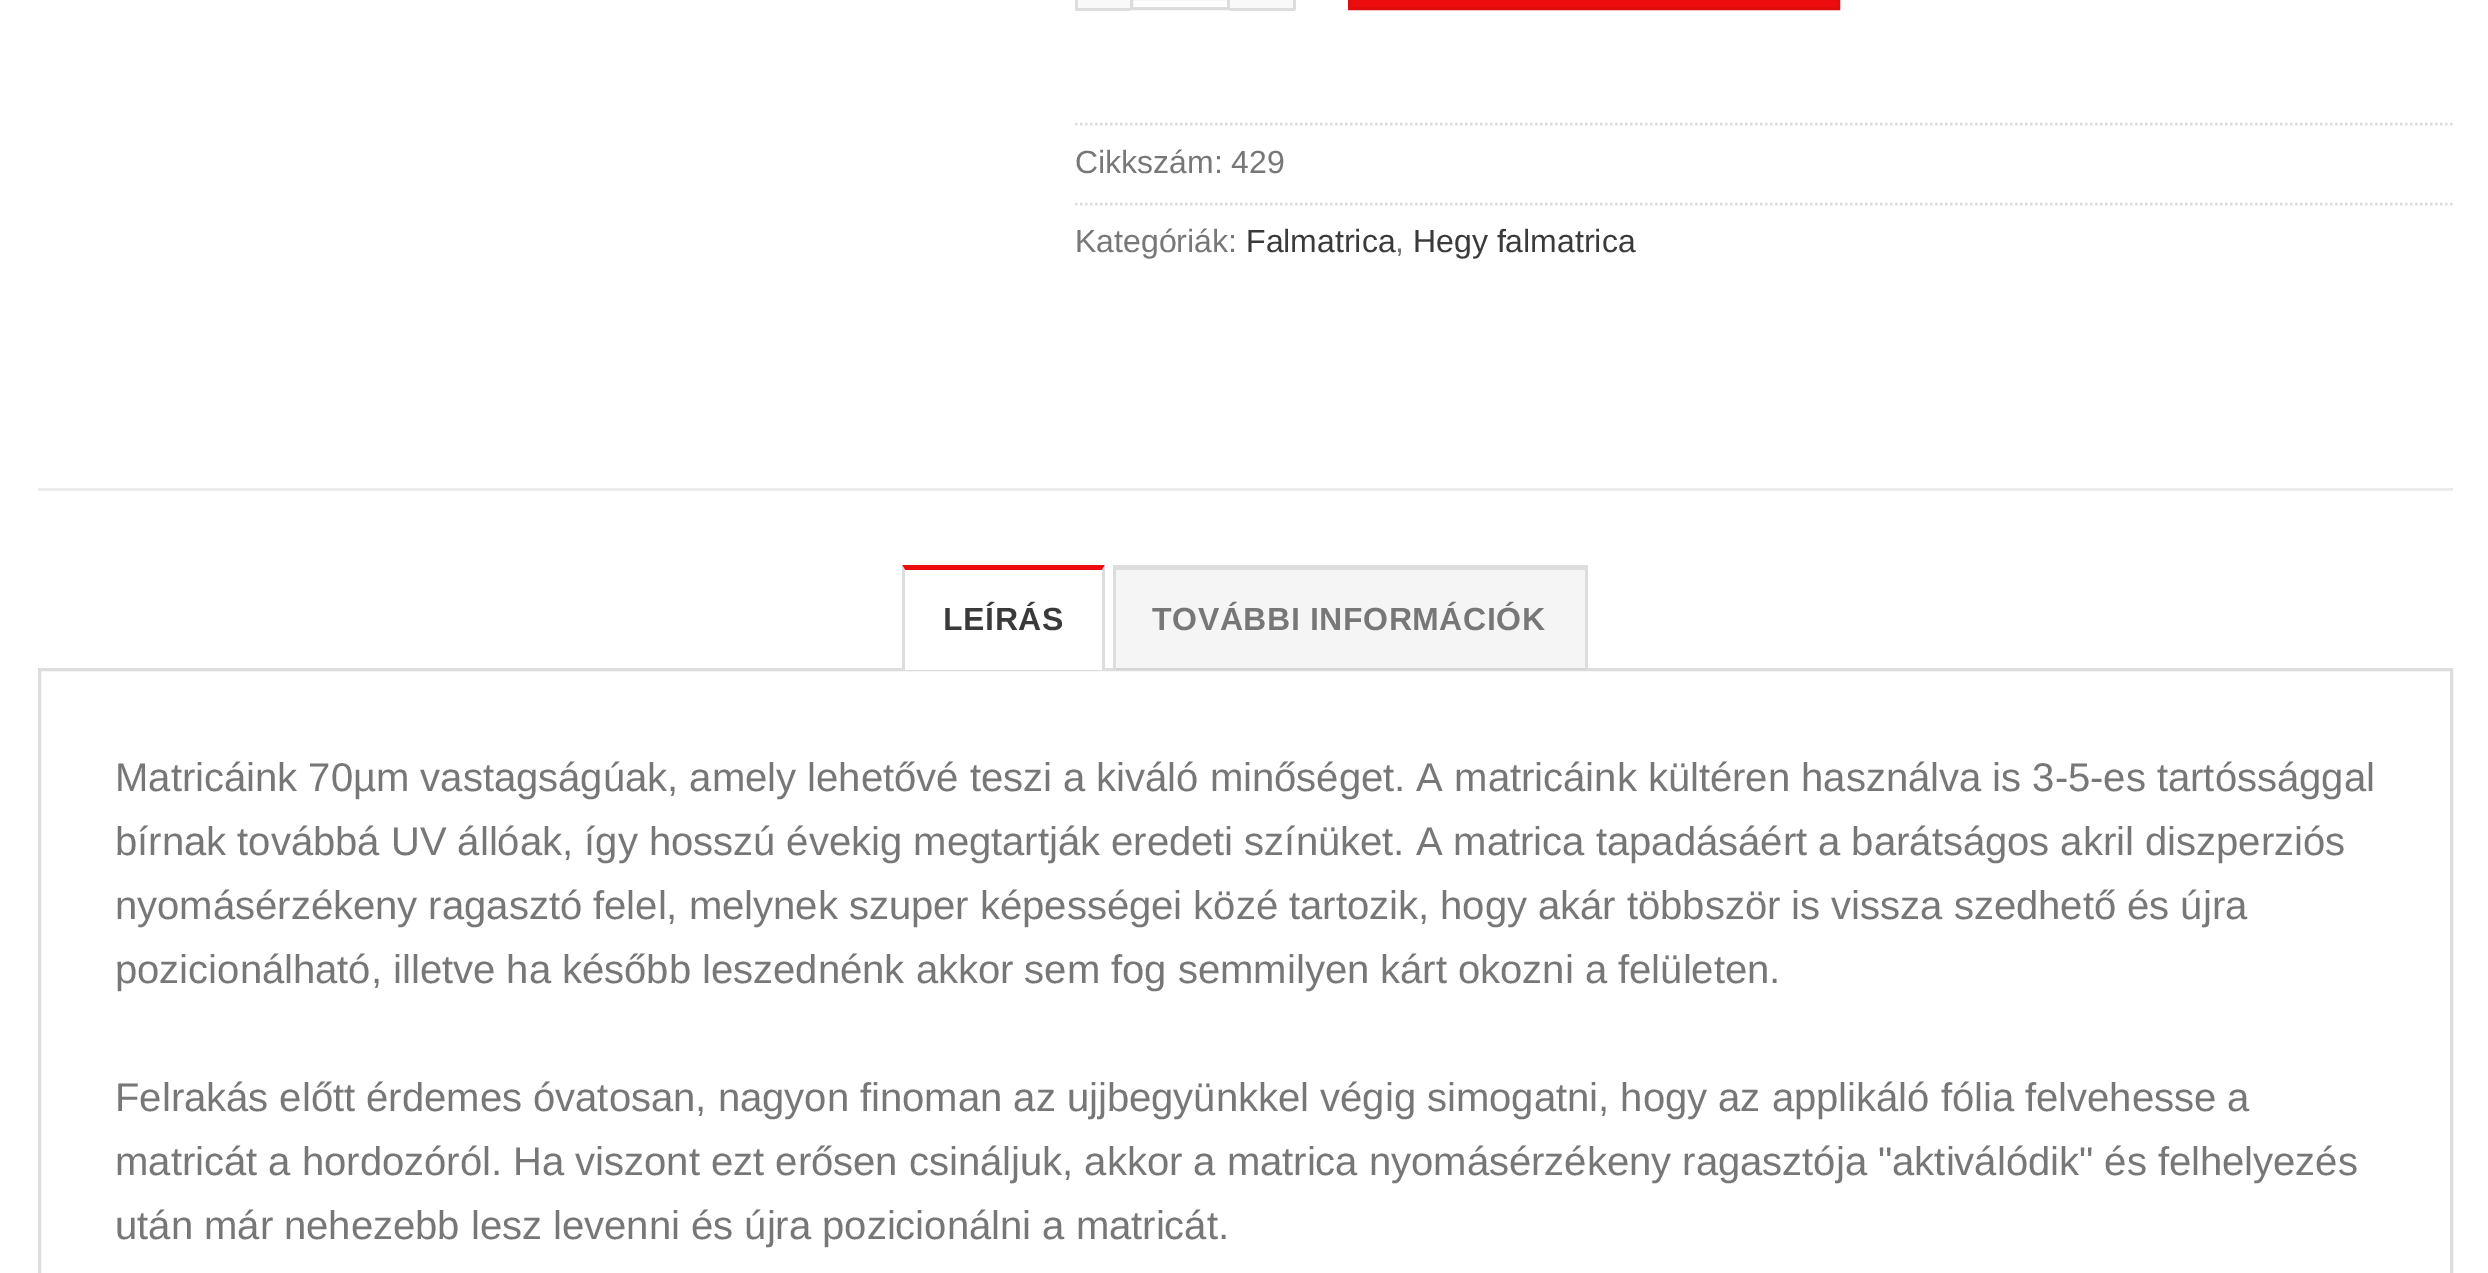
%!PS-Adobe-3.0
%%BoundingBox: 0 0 2488 1273
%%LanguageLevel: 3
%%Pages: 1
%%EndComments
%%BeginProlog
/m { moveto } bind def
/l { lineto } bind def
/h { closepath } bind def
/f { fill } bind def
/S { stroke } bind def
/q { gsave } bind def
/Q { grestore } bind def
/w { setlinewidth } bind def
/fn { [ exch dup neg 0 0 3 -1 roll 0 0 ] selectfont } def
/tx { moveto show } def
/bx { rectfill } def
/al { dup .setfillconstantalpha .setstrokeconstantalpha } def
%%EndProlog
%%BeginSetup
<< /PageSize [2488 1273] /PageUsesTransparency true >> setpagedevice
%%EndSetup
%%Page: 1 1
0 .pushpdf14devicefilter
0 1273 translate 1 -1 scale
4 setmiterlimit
1 setgray
0 0 2488 1273 bx
0.976 setgray
1078 0 52 8 bx
0.867 setgray
1075 8 55 3 bx
1075 0 3 10 bx
3 w
1131.5 -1.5 97 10 rectstroke
0.976 setgray
1230 0 63 8 bx
0.867 setgray
1293 0 3 10 bx
1230 8 65 3 bx
0.929 0.051 0.059 setrgbcolor
1349.5 -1.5 m 1838.5 -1.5 l 1838.5 8.5 l 1349.5 8.5 l h q f Q
0.882 0.047 0.055 setrgbcolor
S
0.867 setgray
2.5 w
[2.5 2.5] 0 setdash
1075 124 m 2452.5 124 l S
/LiberationSans-Regular 32 fn
0.467 setgray
(Cikkszám: 429) 1075 173 tx
0.867 setgray
1075 204 m 2452.5 204 l S
0.467 setgray
(Kategóriák:) 1075 252 tx
0.227 setgray
(Falmatrica) 1246 252 tx
0.467 setgray
(,) 1395 252 tx
0.227 setgray
(Hegy falmatrica) 1413 252 tx
0.925 setgray
38 488 2415 3 bx
0.867 setgray
3 w
[] 0 setdash
39.5 669.5 2412 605 rectstroke
1 setgray
903 668 202 2 bx
0.929 0.051 0.059 setrgbcolor
902 565 m 1105 565 l 1102 570 l 905 570 l h f
0.867 setgray
1105 565 m 1105 670 l 1102 670 l 1102 570 l h f
902 670 m 902 565 l 905 570 l 905 670 l h f
/LiberationSans-Bold 32 fn
0.227 setgray
943 630 m 0.6 0 (LEÍRÁS) ashow
0.04 al
0 setgray
1116 570 469 100 bx
1 al
0.867 setgray
1113 565 475 5 bx
1585 565 3 105 bx
1113 565 3 105 bx
0.467 setgray
1152 630 m 0.6 0 (TOVÁBBI INFORMÁCIÓK) ashow
/LiberationSans-Regular 40 fn
(Matricáink 70µm vastagságúak, amely lehetővé teszi a kiváló minőséget. A matricáink kültéren használva is 3-5-es tartóssággal) 115 791 tx
(bírnak továbbá UV állóak, így hosszú évekig megtartják eredeti színüket. A matrica tapadásáért a barátságos akril diszperziós) 115 855 tx
(nyomásérzékeny ragasztó felel, melynek szuper képességei közé tartozik, hogy akár többször is vissza szedhető és újra) 115 919 tx
(pozicionálható, illetve ha később leszednénk akkor sem fog semmilyen kárt okozni a felületen.) 115 983 tx
(Felrakás előtt érdemes óvatosan, nagyon finoman az ujjbegyünkkel végig simogatni, hogy az applikáló fólia felvehesse a) 115 1111 tx
(matricát a hordozóról. Ha viszont ezt erősen csináljuk, akkor a matrica nyomásérzékeny ragasztója "aktiválódik" és felhelyezés) 115 1175 tx
(után már nehezebb lesz levenni és újra pozicionálni a matricát.) 115 1239 tx
.poppdf14devicefilter showpage
%%EOF
